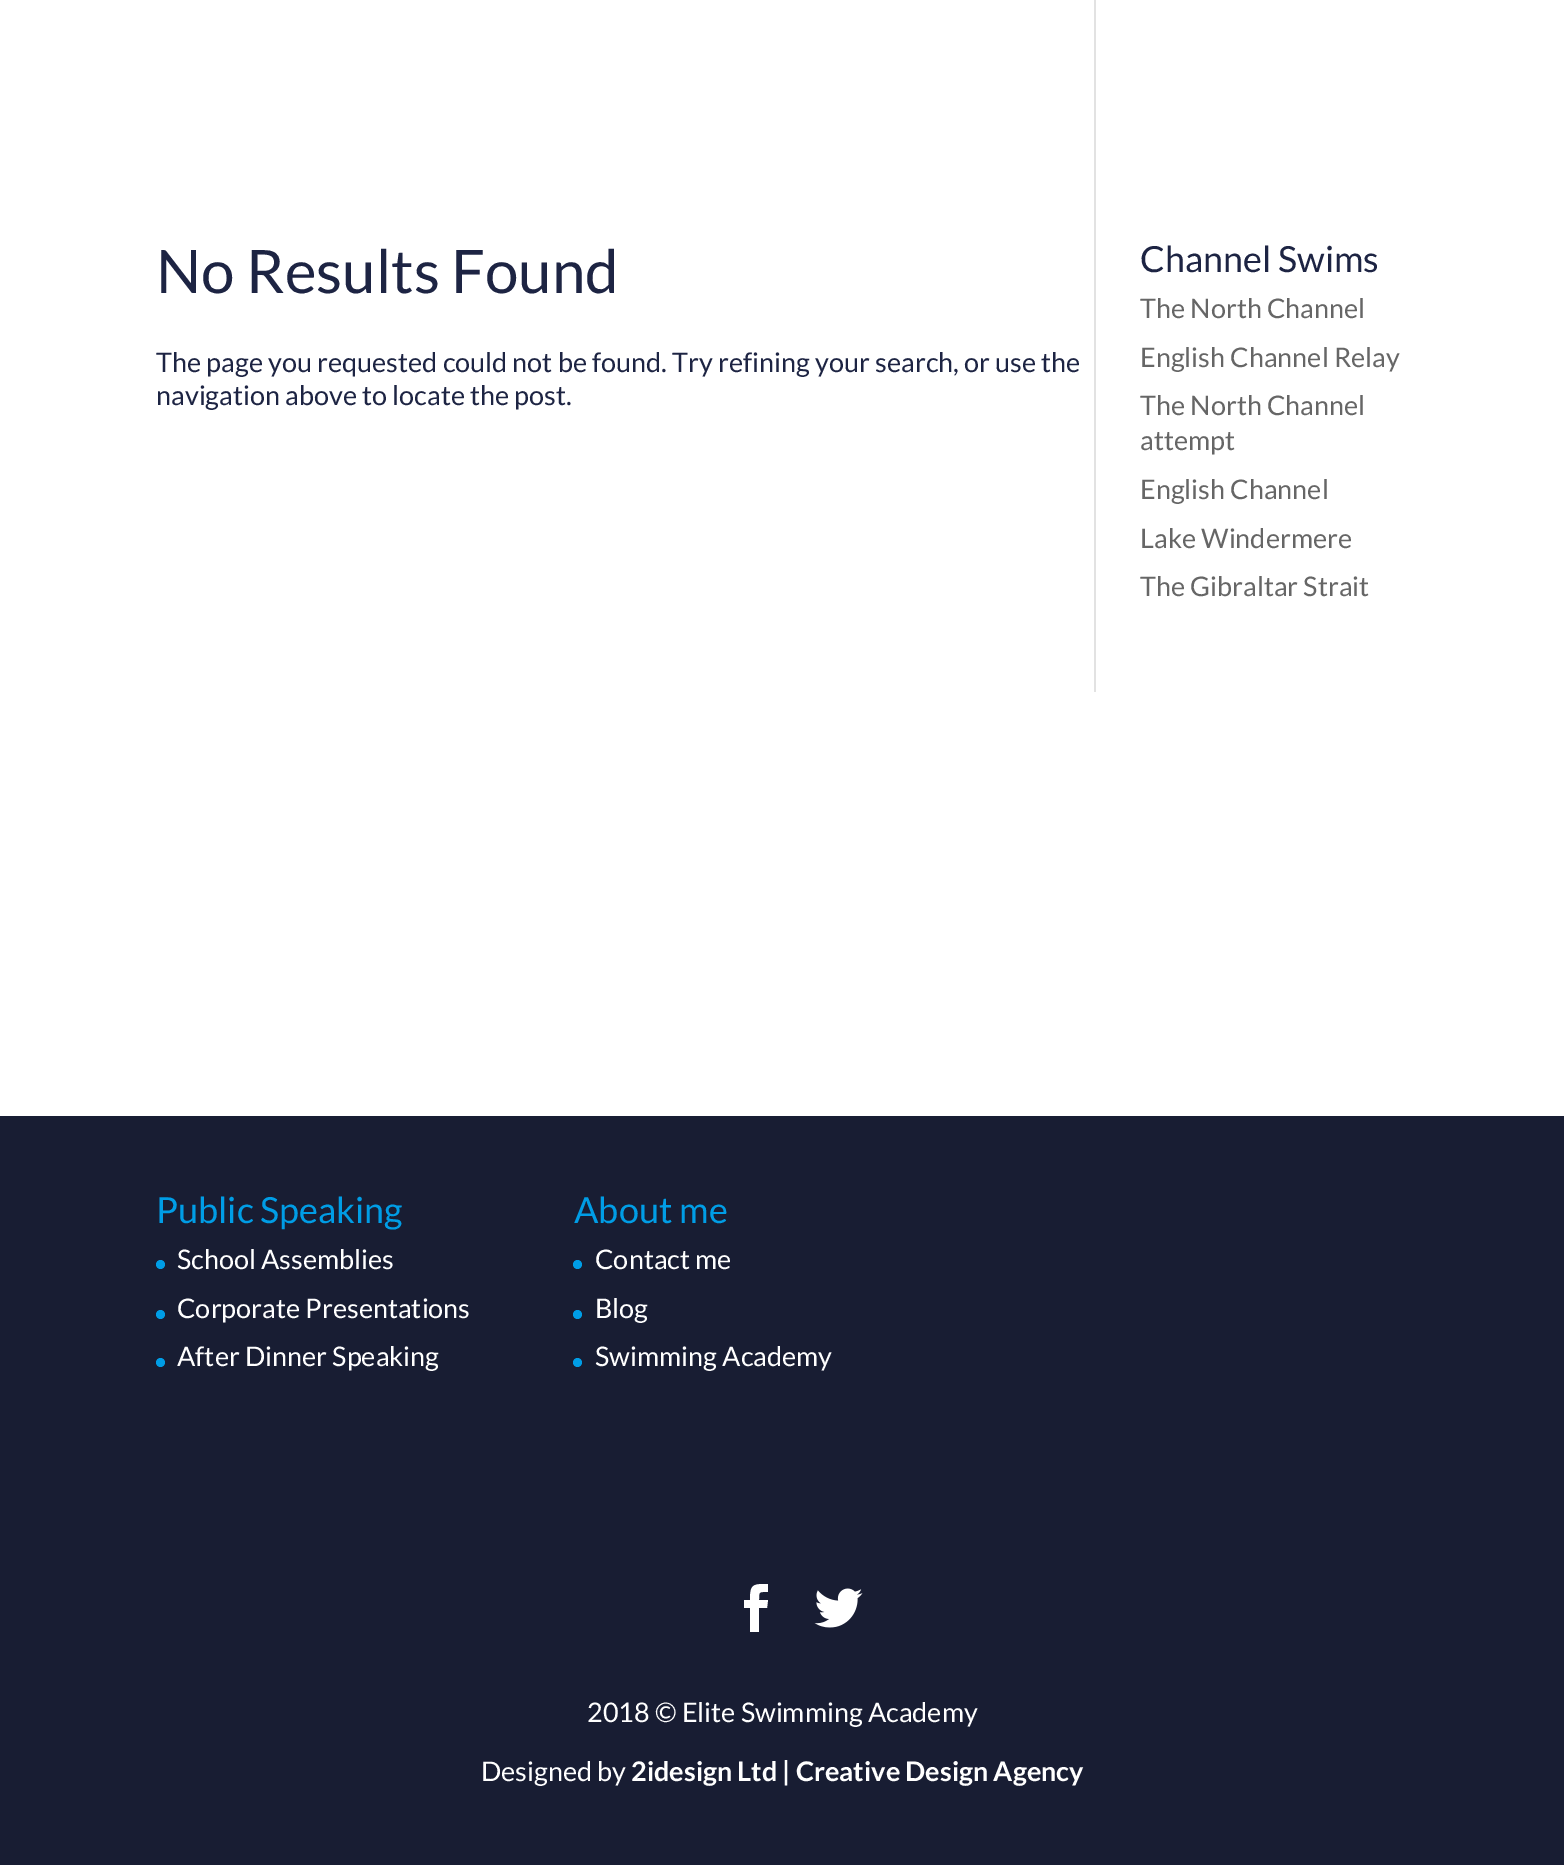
%!PS-Adobe-3.0
%%BoundingBox: 0 0 1564 1865
%%LanguageLevel: 3
%%Pages: 1
%%EndComments
%%BeginProlog
/m { moveto } bind def
/l { lineto } bind def
/c { curveto } bind def
/h { closepath } bind def
/f { fill } bind def
/fn { [ exch dup neg 0 0 3 -1 roll 0 0 ] selectfont } def
/tx { moveto show } def
/bx { rectfill } def
/ci { newpath 0 360 arc closepath } def
/im { 5 dict begin { /h /w /y /x /name } { exch def } forall
  gsave x y translate w h scale
  w h 8 [w 0 0 h 0 0] name (r) file false 3 colorimage grestore end } def
%%EndProlog
%%BeginSetup
<< /PageSize [1564 1865] >> setpagedevice
%%EndSetup
%%Page: 1 1
0 1865 translate 1 -1 scale
4 setmiterlimit
1 setgray
0 0 1564 1865 bx
0.886 setgray
1094 0 2 692 bx
/Lato-Regular 60 fn
0.114 0.141 0.263 setrgbcolor
(No Results Found) 156 293 tx
/Lato-Regular 27 fn
(The page you requested could not be found. Try refining your search, or use the) 156 372 tx
(navigation above to locate the post.) 156 405 tx
/Lato-Regular 36 fn
(Channel Swims) 1140 272 tx
/Lato-Regular 27 fn
0.4 setgray
(The North Channel) 1140 318 tx
(English Channel Relay) 1140 367 tx
(The North Channel) 1140 415 tx
(attempt) 1140 450 tx
(English Channel) 1140 499 tx
(Lake Windermere) 1140 548 tx
(The Gibraltar Strait) 1140 596 tx
0.094 0.114 0.2 setrgbcolor
0 1116 1564 749 bx
/Lato-Regular 36 fn
0 0.616 0.902 setrgbcolor
(Public Speaking) 156 1223 tx
160.5 1264.5 4.5 ci f
/Lato-Regular 27 fn
1 setgray
(School Assemblies) 177 1269 tx
0 0.616 0.902 setrgbcolor
160.5 1314.5 4.5 ci f
1 setgray
(Corporate Presentations) 177 1318 tx
0 0.616 0.902 setrgbcolor
160.5 1362.5 4.5 ci f
1 setgray
(After Dinner Speaking) 177 1366 tx
/Lato-Regular 36 fn
0 0.616 0.902 setrgbcolor
(About me) 574 1223 tx
577.5 1264.5 4.5 ci f
/Lato-Regular 27 fn
1 setgray
(Contact me) 595 1269 tx
0 0.616 0.902 setrgbcolor
577.5 1314.5 4.5 ci f
1 setgray
(Blog) 595 1318 tx
0 0.616 0.902 setrgbcolor
577.5 1362.5 4.5 ci f
1 setgray
(Swimming Academy) 595 1366 tx
750 1632 m 759 1632 l 759 1608 l 767 1608 l 768 1600 l 759 1600 l 759 1591 759 1592 768 1592 c 768 1584 l 753 1584 750 1584 750 1600 c 744 1600 l 744 1608 l 750 1608 l h f
(image0.raw) 814 1588 49 40 im
(2018 © Elite Swimming Academy) 587 1722 tx
(Designed by) 481 1781 tx
/Lato-Bold 27 fn
(2idesign Ltd | Creative Design Agency) 631 1781 tx
showpage
%%EOF
